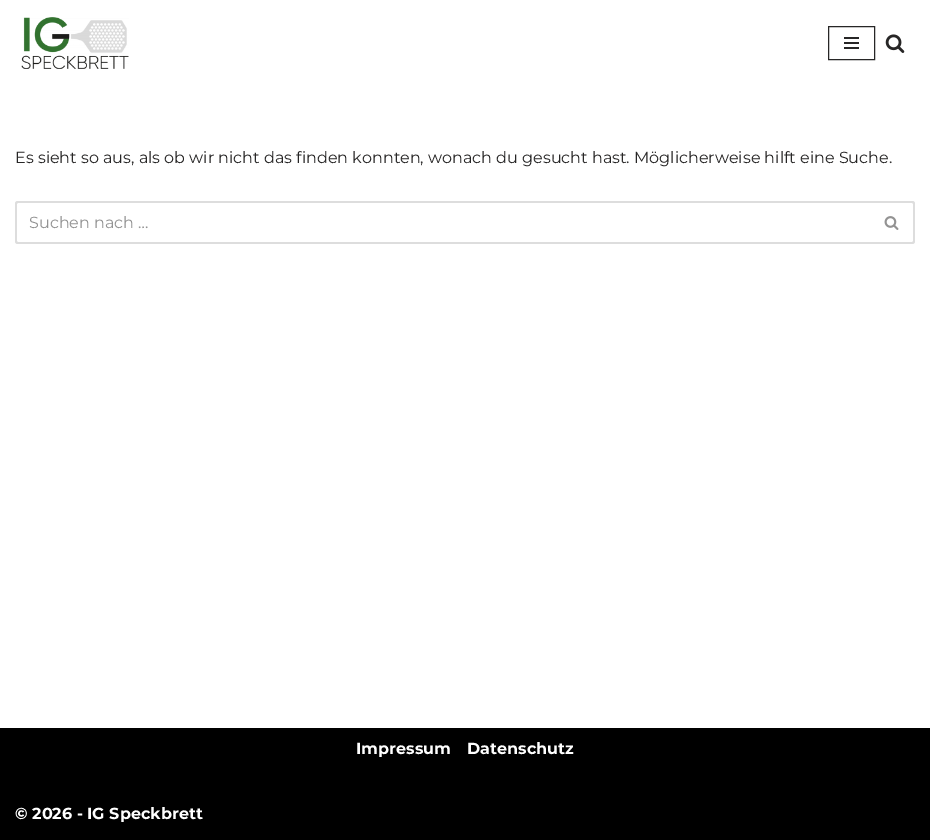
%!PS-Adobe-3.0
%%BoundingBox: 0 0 930 840
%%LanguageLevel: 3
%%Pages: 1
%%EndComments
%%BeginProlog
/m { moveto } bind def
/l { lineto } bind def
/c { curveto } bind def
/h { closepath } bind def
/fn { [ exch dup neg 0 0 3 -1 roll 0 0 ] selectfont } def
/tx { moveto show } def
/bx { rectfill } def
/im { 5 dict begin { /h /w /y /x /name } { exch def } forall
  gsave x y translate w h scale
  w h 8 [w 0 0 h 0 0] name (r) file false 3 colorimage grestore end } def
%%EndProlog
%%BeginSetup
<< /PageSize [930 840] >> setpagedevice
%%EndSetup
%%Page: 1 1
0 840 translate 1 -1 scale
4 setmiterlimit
1 setgray
0 0 930 840 bx
(image0.raw) 21 17 108 52 im
0.153 0.149 0.149 setrgbcolor
828.5 26.5 46 33 rectstroke
844 37 15 2 bx
844 42 15 2 bx
844 47 15 2 bx
(image1.raw) 885 34 20 19 im
/Montserrat-Regular 16 fn
(Es sieht so aus, als ob wir nicht das finden konnten, wonach du gesucht hast. Möglicherweise hilft eine Suche.) 15 163 tx
0.867 setgray
18 201 m 870 201 l 870 244 l 18 244 l 16 244 15 243 15 241 c 15 204 l 15 202 16 201 18 201 c h 18 203 m 870 203 l 870 242 l 18 242 l 17 242 17 242 17 241 c 17 204 l 17 203 17 203 18 203 c h eofill
0.576 setgray
(Suchen nach …) 29 228 tx
0.867 setgray
870 201 m 912 201 l 914 201 915 202 915 204 c 915 241 l 915 243 914 244 912 244 c 870 244 l h 870 203 m 912 203 l 913 203 913 203 913 204 c 913 241 l 913 242 913 242 912 242 c 870 242 l h eofill
(image2.raw) 884 216 15 14 im
0 setgray
0 728 930 112 bx
/Montserrat-Bold 16 fn
1 setgray
(Impressum) 356 754 tx
(Datenschutz) 467 754 tx
(© 2026 - IG Speckbrett) 15 819 tx
showpage
%%EOF
